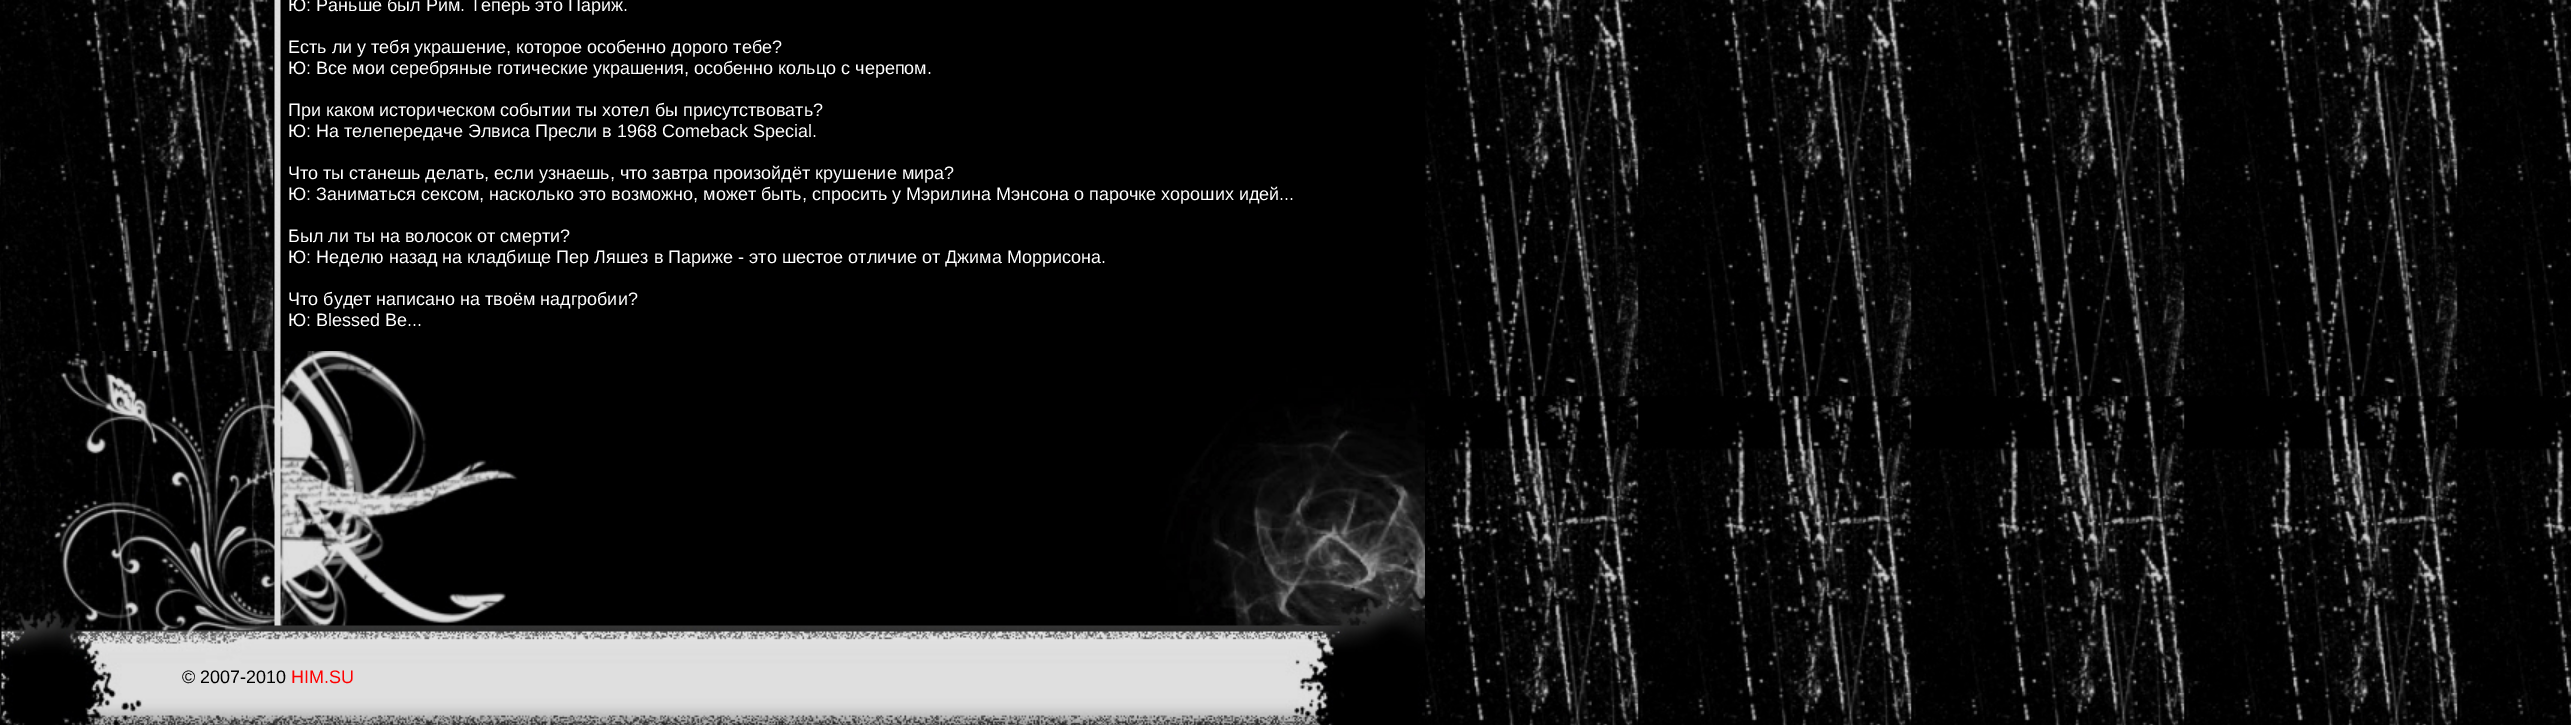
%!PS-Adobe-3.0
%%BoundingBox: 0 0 2571 725
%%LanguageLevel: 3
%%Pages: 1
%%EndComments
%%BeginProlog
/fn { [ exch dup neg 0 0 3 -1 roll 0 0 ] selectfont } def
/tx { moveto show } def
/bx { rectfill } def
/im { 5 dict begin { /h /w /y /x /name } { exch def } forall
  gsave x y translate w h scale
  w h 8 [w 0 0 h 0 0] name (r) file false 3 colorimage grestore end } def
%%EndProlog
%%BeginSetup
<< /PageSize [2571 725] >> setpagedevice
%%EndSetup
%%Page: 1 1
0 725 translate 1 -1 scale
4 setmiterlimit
1 setgray
0 0 2571 725 bx
(image0.raw) 0 0 2571 725 im
0 setgray
273 0 1152 351 bx
(image1.raw) 274 0 7 351 im
/LiberationSans-Regular 18 fn
1 setgray
(Ю: Раньше был Рим. Теперь это Париж.) 288 11 tx
(Есть ли у тебя украшение, которое особенно дорого тебе?) 288 53 tx
(Ю: Все мои серебряные готические украшения, особенно кольцо с черепом.) 288 74 tx
(При каком историческом событии ты хотел бы присутствовать?) 288 116 tx
(Ю: На телепередаче Элвиса Пресли в 1968 Comeback Special.) 288 137 tx
(Что ты станешь делать, если узнаешь, что завтра произойдёт крушение мира?) 288 179 tx
(Ю: Заниматься сексом, насколько это возможно, может быть, спросить у Мэрилина Мэнсона о парочке хороших идей...) 288 200 tx
(Был ли ты на волосок от смерти?) 288 242 tx
(Ю: Неделю назад на кладбище Пер Ляшез в Париже - это шестое отличие от Джима Моррисона.) 288 263 tx
(Что будет написано на твоём надгробии?) 288 305 tx
(Ю: Blessed Be...) 288 326 tx
(image2.raw) 1 351 1424 374 im
0 setgray
(© 2007-2010) 182 683 tx
1 0 0 setrgbcolor
(HIM.SU) 291 683 tx
showpage
%%EOF
